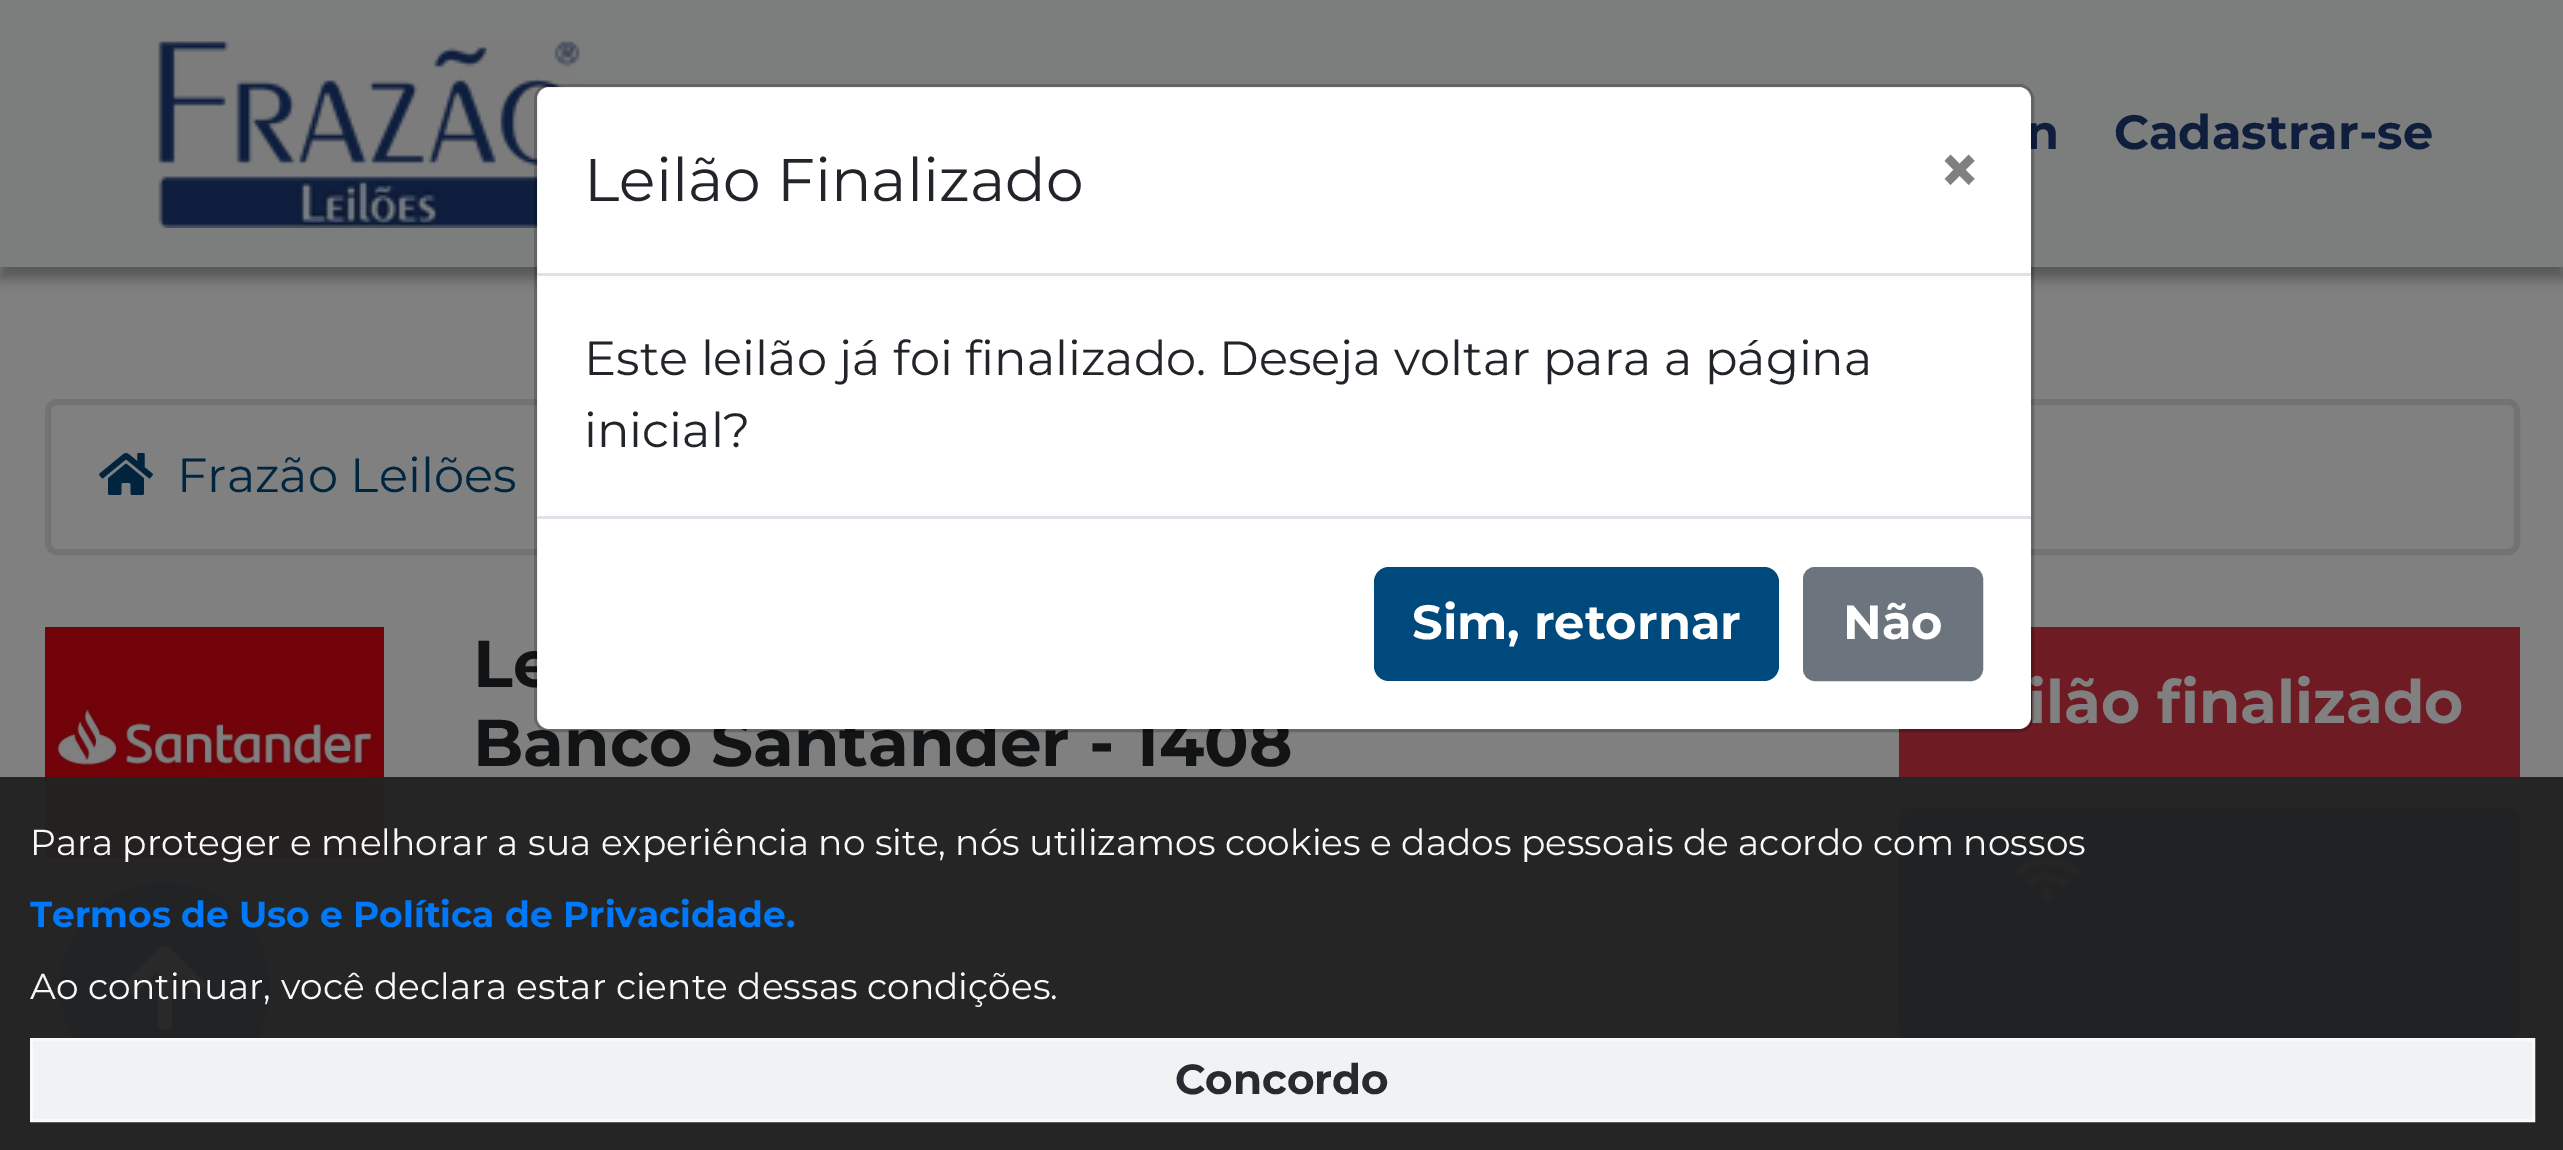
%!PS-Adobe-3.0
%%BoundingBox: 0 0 2563 1150
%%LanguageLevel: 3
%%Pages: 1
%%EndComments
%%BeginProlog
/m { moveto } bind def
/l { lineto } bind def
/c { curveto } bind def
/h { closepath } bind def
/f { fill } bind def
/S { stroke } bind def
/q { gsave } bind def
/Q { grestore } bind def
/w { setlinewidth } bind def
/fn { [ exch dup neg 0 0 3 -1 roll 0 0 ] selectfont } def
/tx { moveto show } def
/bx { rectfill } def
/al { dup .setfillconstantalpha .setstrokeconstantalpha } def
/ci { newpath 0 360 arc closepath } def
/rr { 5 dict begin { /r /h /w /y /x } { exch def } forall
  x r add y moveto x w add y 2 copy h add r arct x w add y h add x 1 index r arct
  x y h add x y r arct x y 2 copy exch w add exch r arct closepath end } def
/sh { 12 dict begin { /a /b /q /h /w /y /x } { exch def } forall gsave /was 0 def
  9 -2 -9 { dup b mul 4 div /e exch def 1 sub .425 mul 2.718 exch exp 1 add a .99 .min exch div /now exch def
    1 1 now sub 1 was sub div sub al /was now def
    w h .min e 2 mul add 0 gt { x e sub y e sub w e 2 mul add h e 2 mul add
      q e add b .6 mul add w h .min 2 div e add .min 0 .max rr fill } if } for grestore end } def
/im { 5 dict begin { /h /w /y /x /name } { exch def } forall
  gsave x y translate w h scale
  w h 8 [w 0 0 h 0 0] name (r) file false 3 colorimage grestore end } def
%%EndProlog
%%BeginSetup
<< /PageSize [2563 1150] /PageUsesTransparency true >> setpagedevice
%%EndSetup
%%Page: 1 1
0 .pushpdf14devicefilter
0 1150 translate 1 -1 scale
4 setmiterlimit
0.502 setgray
0 0 2563 1150 bx
0 setgray
0 12 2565 267 0 6 0.31 sh
0.486 0.49 0.49 setrgbcolor
0 0 2563 267 bx
(image0.raw) 158 41 422 187 im
/Montserrat-Bold 48 fn
0.059 0.118 0.239 setrgbcolor
(n) 2026 149 tx
(Cadastrar-se) 2114 149 tx
0.451 setgray
6 w
48 402 2469 150 9 rr S
(image1.raw) 99 453 54 42 im
/Montserrat-Regular 48 fn
0 0.145 0.247 setrgbcolor
(Frazão Leilões) 177 492 tx
/Montserrat-Bold 66 fn
0.067 0.075 0.082 setrgbcolor
(Le) 473 687 tx
(Banco Santander - 1408) 473 766 tx
0.431 0.106 0.137 setrgbcolor
1899 627 621 150 bx
1 setgray
537 87 1494 642 12 rr f
/Montserrat-Bold 60 fn
0.502 setgray
(ilão finalizado) 2028 723 tx
0.2 al
0 setgray
3 w
535.5 85.5 1497 645 13.5 rr S
1 al
0.871 0.886 0.902 setrgbcolor
537 273 1494 3 bx
/Montserrat-Regular 60 fn
0.129 0.145 0.161 setrgbcolor
(Leilão Finalizado) 584 201 tx
/Montserrat-Bold 72 fn
0.502 setgray
(×) 1938 195 tx
/Montserrat-Regular 48 fn
0.129 0.145 0.161 setrgbcolor
(Este leilão já foi finalizado. Deseja voltar para a página) 584 375 tx
(inicial?) 584 447 tx
0.871 0.886 0.902 setrgbcolor
537 516 1494 3 bx
0 0.286 0.49 setrgbcolor
1374 567 405 114 15 rr f
/Montserrat-Bold 48 fn
1 setgray
(Sim, retornar) 1412 639 tx
0.424 0.459 0.49 setrgbcolor
1804.5 568.5 177 111 10.5 rr q f Q
S
1 setgray
(Não) 1843 639 tx
(image2.raw) 45 627 339 231 im
0 0.145 0.247 setrgbcolor
1899 807 621 234 15 rr f
(image3.raw) 2016 856 63 46 im
0 0.286 0.49 setrgbcolor
165 987 105 ci f
1 setgray
130 993 m 125 989 l 124 987 124 985 125 983 c 162 946 l 164 945 166 945 168 946 c 205 983 l 206 985 206 987 205 989 c 200 993 l 199 995 196 995 194 993 c 172 971 l 172 1024 l 172 1027 170 1029 168 1029 c 162 1029 l 160 1029 158 1027 158 1024 c 158 971 l 136 993 l 134 995 131 995 130 993 c h f
0.97 al
0.133 setgray
0 777 2563 373 bx
/Montserrat-Regular 36 fn
1 al
0.973 setgray
(Para proteger e melhorar a sua experiência no site, nós utilizamos cookies e dados pessoais de acordo com nossos) 30 855 tx
/Montserrat-Bold 36 fn
0.004 0.471 0.973 setrgbcolor
(Termos de Uso e Política de Privacidade.) 30 927 tx
/Montserrat-Regular 36 fn
0.973 setgray
(Ao continuar, você declara estar ciente dessas condições.) 30 999 tx
0.97 al
0.973 0.976 0.98 setrgbcolor
31.5 1039.5 m 2533.5 1039.5 l 2533.5 1120.5 l 31.5 1120.5 l h f
1 al
31.5 1039.5 m 2533.5 1039.5 l 2533.5 1120.5 l 31.5 1120.5 l h S
/Montserrat-Bold 42 fn
0.153 0.169 0.184 setrgbcolor
(Concordo) 1175 1094 tx
.poppdf14devicefilter showpage
%%EOF
